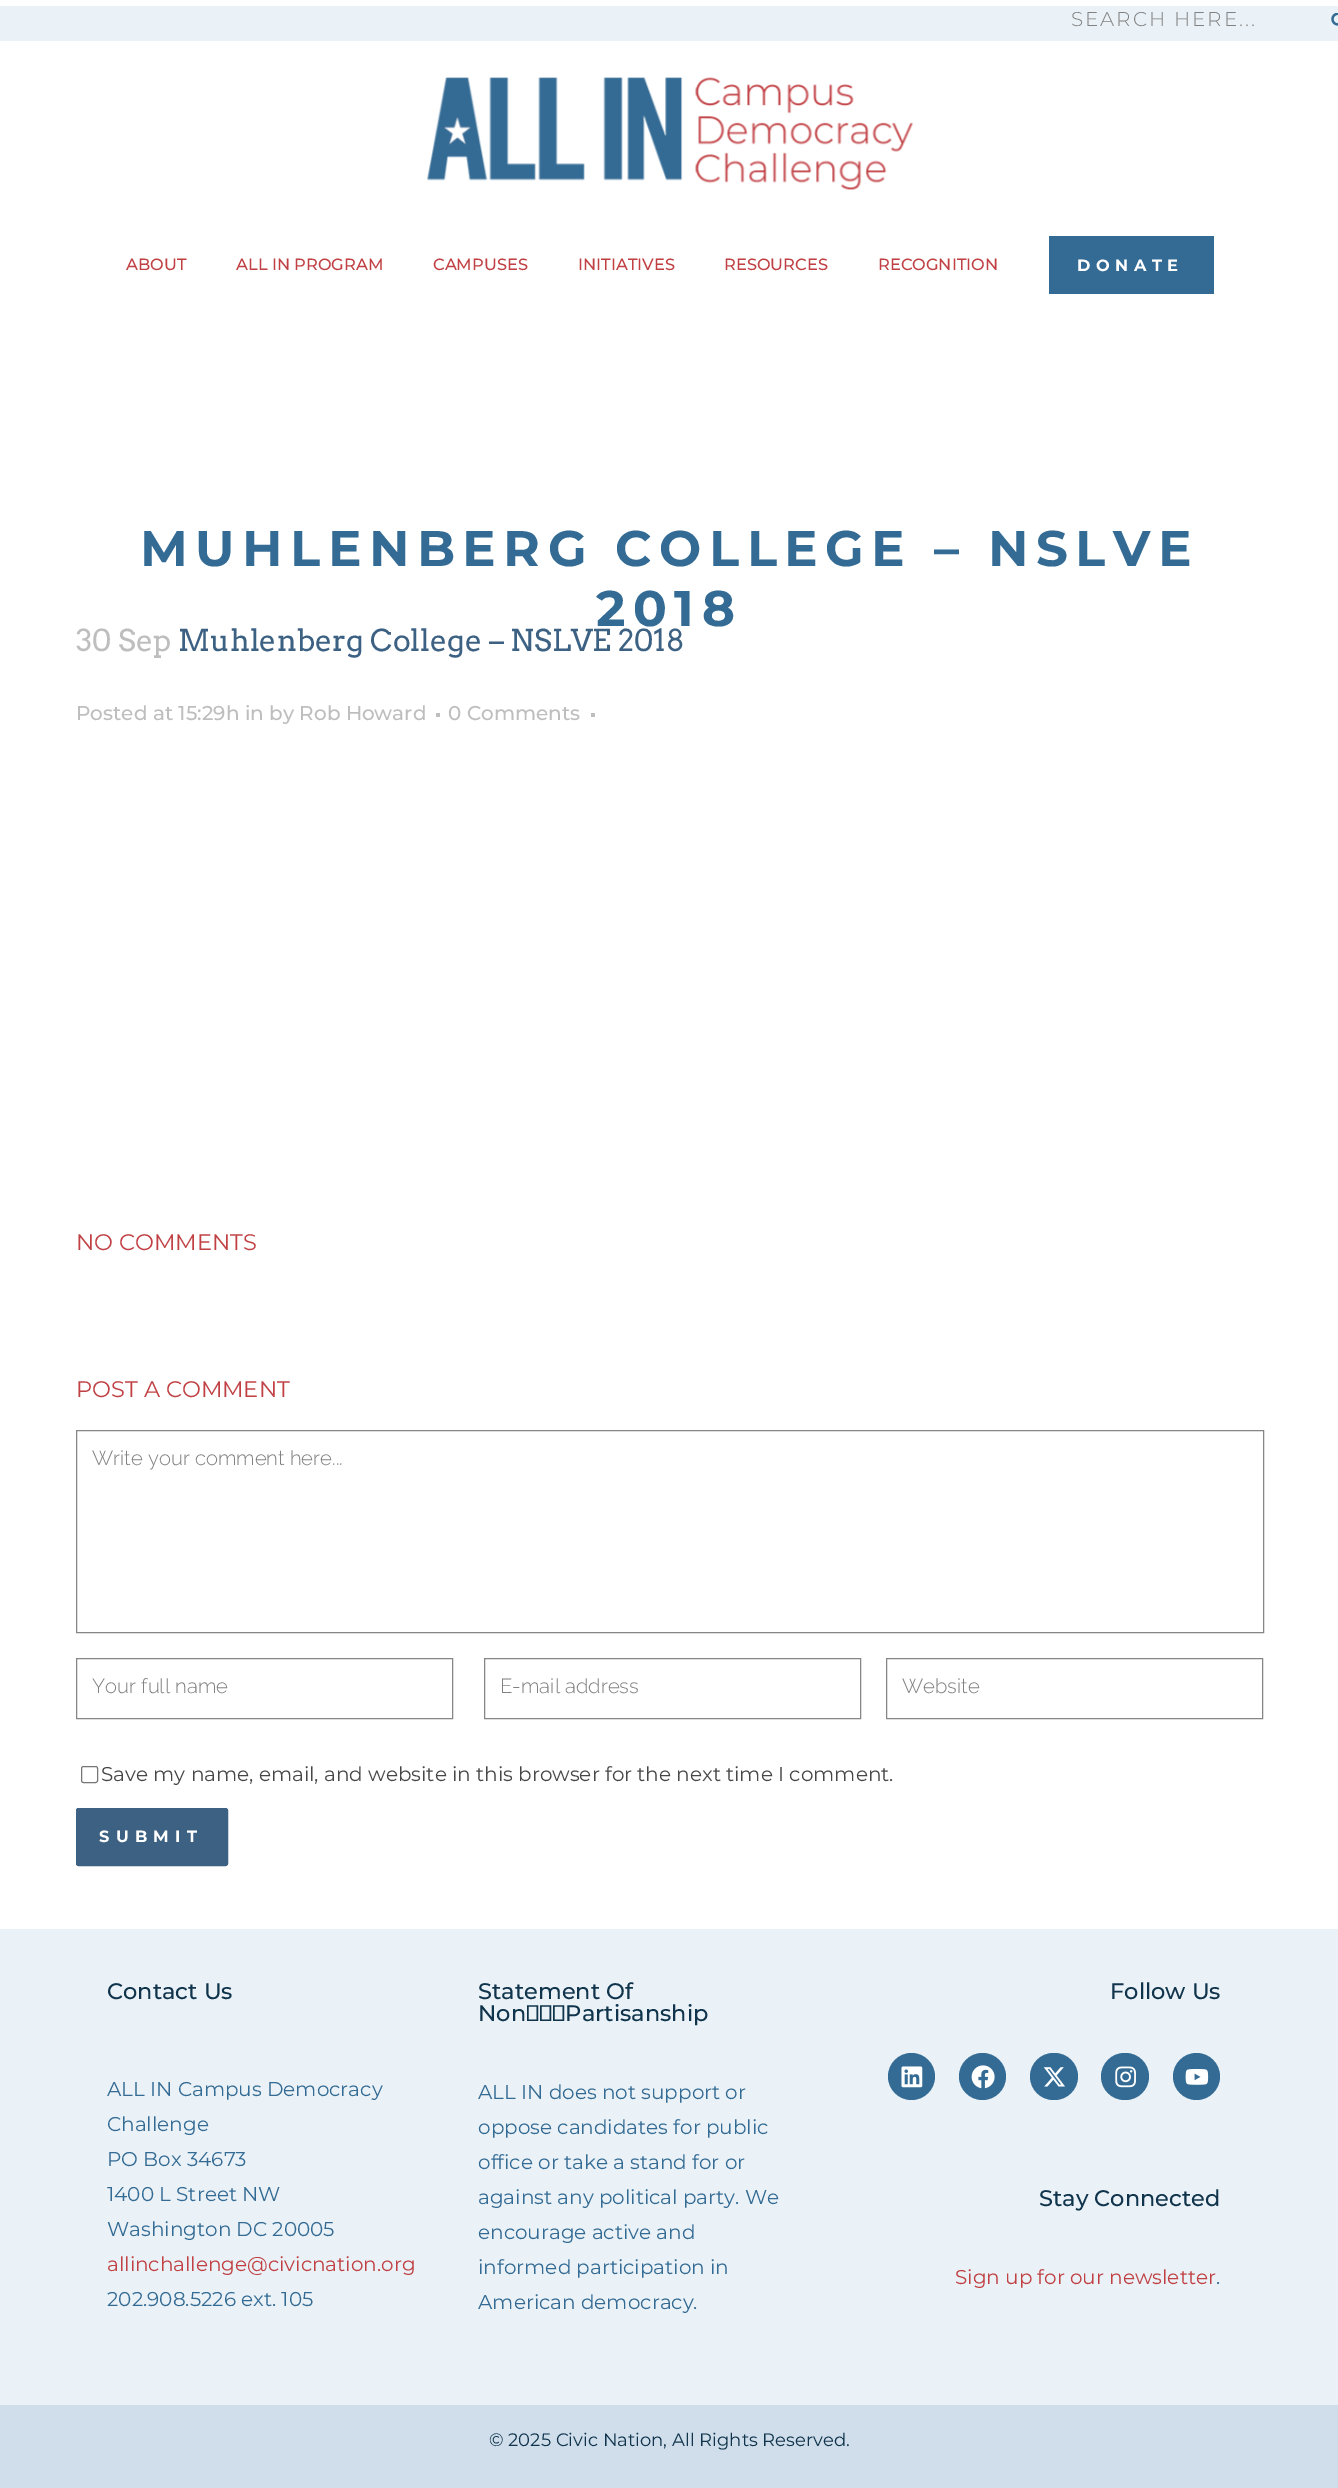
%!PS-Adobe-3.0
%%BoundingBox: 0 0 1338 2488
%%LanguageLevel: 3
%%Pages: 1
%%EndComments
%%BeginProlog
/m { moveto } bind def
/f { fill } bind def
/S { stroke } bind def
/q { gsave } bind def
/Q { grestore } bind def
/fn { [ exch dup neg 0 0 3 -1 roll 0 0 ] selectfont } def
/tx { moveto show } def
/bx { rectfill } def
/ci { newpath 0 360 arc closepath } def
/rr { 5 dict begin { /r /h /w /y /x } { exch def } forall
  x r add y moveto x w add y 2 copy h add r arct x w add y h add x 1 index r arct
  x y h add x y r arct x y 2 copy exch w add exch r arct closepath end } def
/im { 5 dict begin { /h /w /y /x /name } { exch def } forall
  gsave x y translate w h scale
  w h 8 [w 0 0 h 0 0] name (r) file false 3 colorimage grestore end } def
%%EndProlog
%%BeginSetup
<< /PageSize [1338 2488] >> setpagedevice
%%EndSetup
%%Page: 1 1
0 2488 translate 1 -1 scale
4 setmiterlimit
1 setgray
0 0 1338 2488 bx
0.922 0.949 0.969 setrgbcolor
0 6 1338 35 bx
/Montserrat-Light 20 fn
0.506 setgray
1071 26 m 1.9 0 (SEARCH HERE...) ashow
(image0.raw) 1331 13 7 13 im
(image1.raw) 427 77 487 113 im
/Montserrat-Medium 16.25 fn
0.753 0.251 0.263 setrgbcolor
(ABOUT) 126 270 tx
(ALL IN PROGRAM) 236 270 tx
(CAMPUSES) 433 270 tx
(INITIATIVES) 578 270 tx
(RESOURCES) 724 270 tx
(RECOGNITION) 878 270 tx
0.2 0.42 0.58 setrgbcolor
1049 236 165 58 bx
/Montserrat-Bold 16.25 fn
1 setgray
1077 271 m 5.5 0 (DONATE) ashow
/Montserrat-Bold 50 fn
0.2 0.42 0.58 setrgbcolor
140 566 m 7.5 0 (MUHLENBERG COLLEGE – NSLVE) ashow
596 626 m 7.5 0 (2018) ashow
/Arvo-Regular 30 fn
0.745 setgray
(30 Sep) 76 651 tx
0.235 0.38 0.51 setrgbcolor
(Muhlenberg College – NSLVE 2018) 178 651 tx
/Montserrat-Medium 20 fn
0.745 setgray
(Posted at 15:29h in by Rob Howard) 76 720 tx
436 713 4 4 bx
(0 Comments) 448 720 tx
591 713 4 4 bx
/Montserrat-Regular 22.5 fn
0.753 0.251 0.263 setrgbcolor
(NO COMMENTS) 76 1250 tx
(POST A COMMENT) 76 1397 tx
0.518 0.525 0.533 setrgbcolor
76.5 1430.5 1187 202 rectstroke
/Raleway-Light 20.25 fn
0.506 setgray
(Write your comment here...) 92 1465 tx
0.518 0.525 0.533 setrgbcolor
76.5 1658.5 376 60 rectstroke
0.506 setgray
(Your full name) 92 1693 tx
0.518 0.525 0.533 setrgbcolor
484.5 1658.5 376 60 rectstroke
0.506 setgray
(E-mail address) 500 1693 tx
0.518 0.525 0.533 setrgbcolor
886.5 1658.5 376 60 rectstroke
0.506 setgray
(Website) 902 1693 tx
0.463 setgray
81.5 1766.5 16 16 2 rr S
/Montserrat-Regular 20 fn
0.278 setgray
(Save my name, email, and website in this browser for the next time I comment.) 101 1781 tx
0.235 0.38 0.51 setrgbcolor
76.5 1808.5 151 57 2 rr q f Q
S
/Montserrat-Bold 16.25 fn
1 setgray
99 1842 m 6.25 0 (SUBMIT) ashow
0.922 0.949 0.969 setrgbcolor
0 1929 1338 476 bx
/Montserrat-Medium 22.5 fn
0.059 0.204 0.298 setrgbcolor
(Contact Us) 107 1999 tx
/Montserrat-Regular 20 fn
0.2 0.42 0.58 setrgbcolor
(ALL IN Campus Democracy) 107 2096 tx
(Challenge) 107 2131 tx
(PO Box 34673) 107 2166 tx
(1400 L Street NW) 107 2201 tx
(Washington DC 20005) 107 2236 tx
0.753 0.251 0.263 setrgbcolor
(allinchallenge@civicnation.org) 107 2271 tx
0.2 0.42 0.58 setrgbcolor
(202.908.5226 ext. 105) 107 2306 tx
/Montserrat-Medium 22.5 fn
0.059 0.204 0.298 setrgbcolor
(Statement Of) 478 1999 tx
(Non‑Partisanship) 478 2021 tx
/Montserrat-Regular 20 fn
0.2 0.42 0.58 setrgbcolor
(ALL IN does not support or) 478 2099 tx
(oppose candidates for public) 478 2134 tx
(office or take a stand for or) 478 2169 tx
(against any political party. We) 478 2204 tx
(encourage active and) 478 2239 tx
(informed participation in) 478 2274 tx
(American democracy.) 478 2309 tx
/Montserrat-Medium 22.5 fn
0.059 0.204 0.298 setrgbcolor
(Follow Us) 1110 1999 tx
0.2 0.42 0.58 setrgbcolor
911.5 2076.5 23.5 ci f
(image2.raw) 901 2066 22 22 im
982.5 2076.5 23.5 ci f
(image3.raw) 971 2065 24 24 im
1030 2053 48 47 23.5 rr f
(image4.raw) 1043 2067 22 20 im
1101 2053 48 47 23.5 rr f
(image5.raw) 1115 2066 21 22 im
1196.5 2076.5 23.5 ci f
(image6.raw) 1185 2068 24 17 im
0.059 0.204 0.298 setrgbcolor
(Stay Connected) 1039 2206 tx
/Montserrat-Regular 20 fn
0.753 0.251 0.263 setrgbcolor
(Sign up for our newsletter) 955 2284 tx
0.2 0.42 0.58 setrgbcolor
(.) 1216 2284 tx
0.812 0.871 0.918 setrgbcolor
0 2405 1338 83 bx
/Montserrat-Regular 18 fn
0.059 0.204 0.298 setrgbcolor
(© 2025 Civic Nation, All Rights Reserved.) 489 2446 tx
showpage
%%EOF
